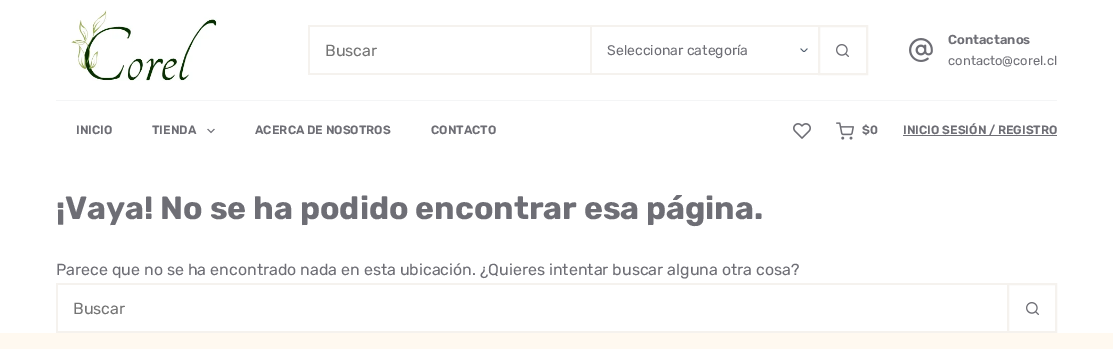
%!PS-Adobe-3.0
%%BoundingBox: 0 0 1113 349
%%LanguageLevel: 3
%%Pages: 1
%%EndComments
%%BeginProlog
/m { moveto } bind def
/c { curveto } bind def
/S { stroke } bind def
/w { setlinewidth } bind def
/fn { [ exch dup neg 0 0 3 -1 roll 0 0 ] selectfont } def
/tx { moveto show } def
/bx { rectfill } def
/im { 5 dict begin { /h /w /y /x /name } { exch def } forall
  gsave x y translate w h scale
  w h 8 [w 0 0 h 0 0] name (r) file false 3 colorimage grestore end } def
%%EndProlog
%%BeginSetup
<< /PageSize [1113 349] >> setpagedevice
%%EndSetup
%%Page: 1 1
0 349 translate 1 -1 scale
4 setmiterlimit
1 setgray
0 0 1113 349 bx
(image0.raw) 71 10 146 71 im
0.961 0.949 0.933 setrgbcolor
308 25 510 2 bx
308 73 510 2 bx
308 25 2 50 bx
/Rubik-Regular 16 fn
0.459 setgray
(Buscar) 325 56 tx
(image1.raw) 800 48 8 4 im
0.961 0.949 0.933 setrgbcolor
590 25 2 50 bx
/Rubik-Regular 14 fn
0.431 0.431 0.459 setrgbcolor
(Seleccionar categoría) 607 55 tx
0.961 0.949 0.933 setrgbcolor
2 w
819 26 48 48 rectstroke
(image2.raw) 836 44 13 13 im
(image3.raw) 909 38 24 24 im
/Rubik-SemiBold 13 fn
0.431 0.431 0.459 setrgbcolor
(Contactanos) 948 44 tx
/Rubik-Regular 13 fn
(contacto@corel.cl) 948 65 tx
0.957 0.961 0.965 setrgbcolor
56 100 1001 1 bx
/Rubik-SemiBold 12 fn
0.431 0.431 0.459 setrgbcolor
(INICIO) 76 134 tx
(TIENDA) 152 134 tx
(image4.raw) 207 128 8 6 im
(ACERCA DE NOSOTROS) 255 134 tx
(CONTACTO) 431 134 tx
(image5.raw) 793 123 18 16 im
(image6.raw) 836 122 18 18 im
($0) 862 134 tx
(INICIO SESIÓN / REGISTRO) 903 134 tx
903 135 154 1 bx
/Rubik-Bold 32 fn
(¡Vaya! No se ha podido encontrar esa página.) 56 219 tx
/Rubik-Regular 16 fn
(Parece que no se ha encontrado nada en esta ubicación. ¿Quieres intentar buscar alguna otra cosa?) 56 275 tx
0.961 0.949 0.933 setrgbcolor
56 283 951 2 bx
56 331 951 2 bx
56 283 2 50 bx
0.459 setgray
(Buscar) 73 314 tx
0.961 0.949 0.933 setrgbcolor
1008 284 48 48 rectstroke
(image2.raw) 1026 302 13 13 im
1 setgray
1.5 w
1 setlinecap
1025 306 m 1026 302 1030 299.5 1034 301 c S
1 0.976 0.941 setrgbcolor
0 333 1113 16 bx
showpage
%%EOF
